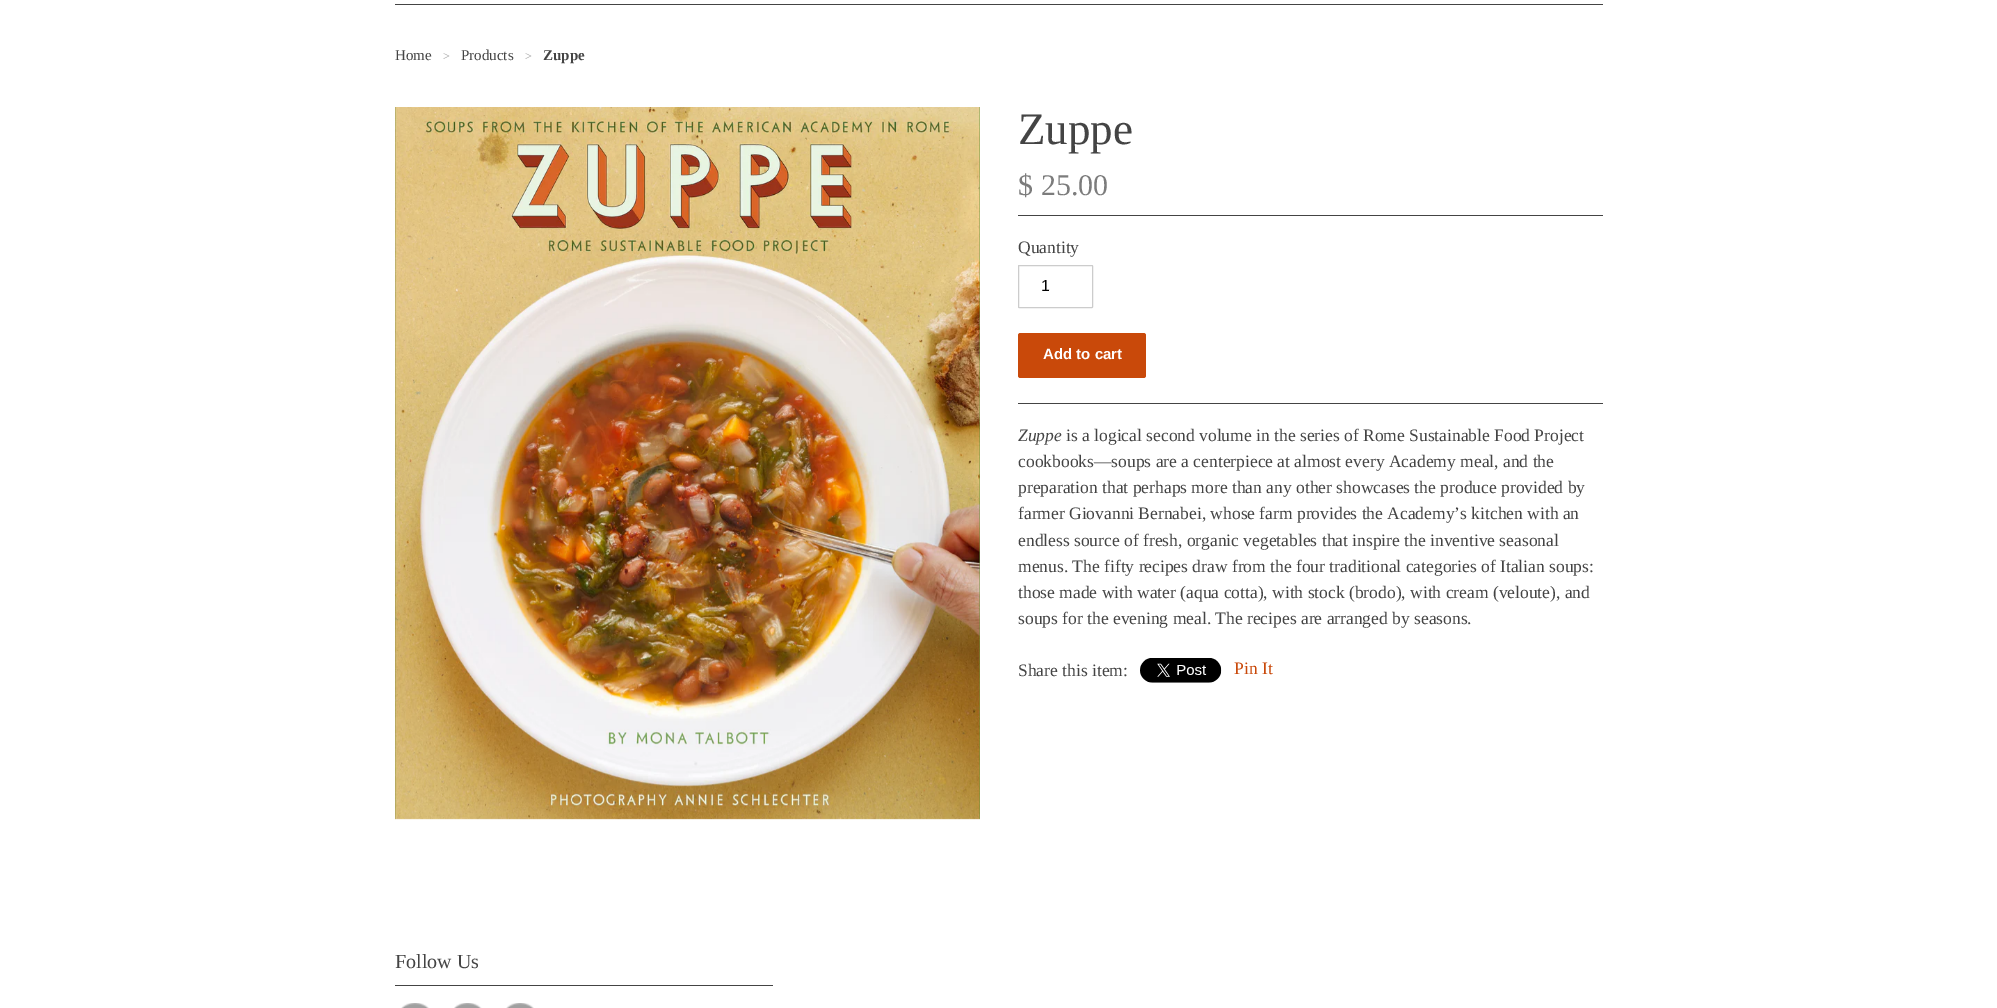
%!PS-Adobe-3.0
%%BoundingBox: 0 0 1997 1008
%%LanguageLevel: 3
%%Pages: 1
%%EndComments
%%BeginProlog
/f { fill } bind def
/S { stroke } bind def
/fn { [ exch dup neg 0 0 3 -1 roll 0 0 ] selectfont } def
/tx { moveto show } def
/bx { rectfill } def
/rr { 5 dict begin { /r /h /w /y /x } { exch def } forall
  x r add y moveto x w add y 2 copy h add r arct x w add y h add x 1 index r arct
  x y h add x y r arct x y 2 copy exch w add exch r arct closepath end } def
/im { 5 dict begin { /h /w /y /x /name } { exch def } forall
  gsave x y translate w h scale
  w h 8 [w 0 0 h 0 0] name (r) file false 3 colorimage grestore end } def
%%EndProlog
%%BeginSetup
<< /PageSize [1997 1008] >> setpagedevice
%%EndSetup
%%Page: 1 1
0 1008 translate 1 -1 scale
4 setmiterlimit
1 setgray
0 0 1997 1008 bx
0.267 setgray
395 4 1208 1 bx
/LiberationSerif-Regular 15 fn
(Home) 395 60 tx
/LiberationSerif-Regular 12 fn
0.635 setgray
(>) 443 60 tx
/LiberationSerif-Regular 15 fn
0.267 setgray
(Products) 461 60 tx
/LiberationSerif-Regular 12 fn
0.635 setgray
(>) 525 60 tx
/LiberationSerif-Bold 15 fn
0.267 setgray
(Zuppe) 543 60 tx
(image0.raw) 395 107 585 713 im
/LiberationSerif-Regular 45 fn
(Zuppe) 1018 144 tx
/LiberationSerif-Regular 30 fn
0.486 setgray
($ 25.00) 1018 195 tx
0.267 setgray
1018 215 585 1 bx
1018 403 585 1 bx
/LiberationSerif-Regular 17.5 fn
(Quantity) 1018 253 tx
0.8 setgray
1018.5 265.5 74 42 0.5 rr S
/LiberationSans-Regular 16 fn
0 setgray
(1) 1041 291 tx
0.788 0.286 0.039 setrgbcolor
1018 333 128 45 2.5 rr f
/LiberationSans-Bold 15 fn
1 setgray
(Add to cart) 1043 359 tx
/LiberationSerif-Italic 17.5 fn
0.267 setgray
(Zuppe) 1018 441 tx
/LiberationSerif-Regular 17.5 fn
(is a logical second volume in the series of Rome Sustainable Food Project) 1066 441 tx
(cookbooks—soups are a centerpiece at almost every Academy meal, and the) 1018 467 tx
(preparation that perhaps more than any other showcases the produce provided by) 1018 493 tx
(farmer Giovanni Bernabei, whose farm provides the Academy’s kitchen with an) 1018 519 tx
(endless source of fresh, organic vegetables that inspire the inventive seasonal) 1018 546 tx
(menus. The fifty recipes draw from the four traditional categories of Italian soups:) 1018 572 tx
(those made with water \(aqua cotta\), with stock \(brodo\), with cream \(veloute\), and) 1018 598 tx
(soups for the evening meal. The recipes are arranged by seasons.) 1018 624 tx
(Share this item:) 1018 676 tx
(image1.raw) 1140 658 82 25 im
0.788 0.286 0.039 setrgbcolor
(Pin It) 1234 674 tx
0.267 setgray
395 985 378 1 bx
/LiberationSerif-Regular 20 fn
(Follow Us) 395 968 tx
(image2.raw) 401 1003 28 5 im
(image3.raw) 454 1003 28 5 im
(image4.raw) 506 1003 28 5 im
showpage
%%EOF
